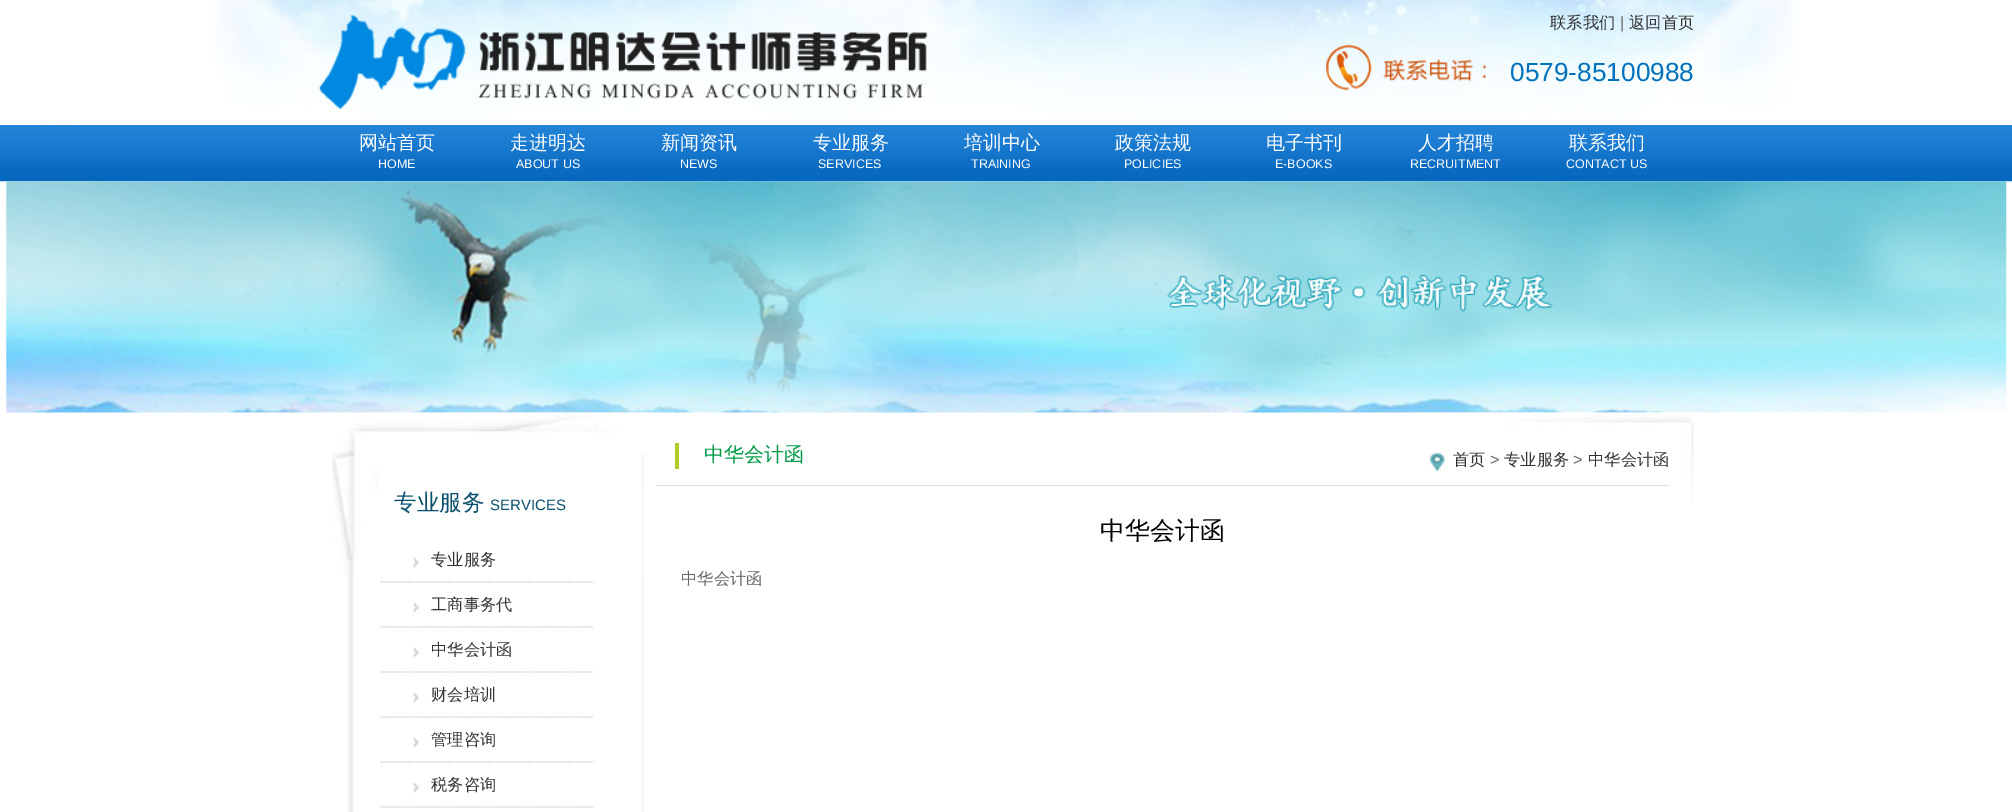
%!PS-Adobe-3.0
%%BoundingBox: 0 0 2012 812
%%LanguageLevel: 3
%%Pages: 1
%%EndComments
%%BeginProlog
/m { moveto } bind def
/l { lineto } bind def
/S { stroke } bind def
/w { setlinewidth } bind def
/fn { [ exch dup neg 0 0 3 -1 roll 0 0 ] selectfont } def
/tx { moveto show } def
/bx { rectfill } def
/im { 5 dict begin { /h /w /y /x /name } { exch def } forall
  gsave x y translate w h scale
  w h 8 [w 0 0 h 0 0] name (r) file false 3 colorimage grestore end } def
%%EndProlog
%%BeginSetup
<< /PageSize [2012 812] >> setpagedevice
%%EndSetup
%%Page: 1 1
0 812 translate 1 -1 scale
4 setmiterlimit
1 setgray
0 0 2012 812 bx
(image0.raw) 215 0 1584 119 im
(image1.raw) 318 14 610 95 im
/WenQuanYiZenHei-Medium 16.25 fn
0.2 setgray
(联系我们) 1550 28 tx
/LiberationSans-Regular 16.25 fn
0.4 setgray
(|) 1620 28 tx
/WenQuanYiZenHei-Medium 16.25 fn
0.2 setgray
(返回首页) 1629 28 tx
(image2.raw) 1325 44 162 47 im
/LiberationSans-Regular 26.25 fn
0 0.447 0.737 setrgbcolor
(0579-85100988) 1510 81 tx
(image3.raw) 0 125 2012 57 im
/WenQuanYiZenHei-Medium 19 fn
1 setgray
(网站首页) 359 149 tx
/LiberationSans-Regular 12.5 fn
(HOME) 378 168 tx
/WenQuanYiZenHei-Medium 19 fn
(走进明达) 510 149 tx
/LiberationSans-Regular 12.5 fn
(ABOUT US) 516 168 tx
/WenQuanYiZenHei-Medium 19 fn
(新闻资讯) 661 149 tx
/LiberationSans-Regular 12.5 fn
(NEWS) 680 168 tx
/WenQuanYiZenHei-Medium 19 fn
(专业服务) 813 149 tx
/LiberationSans-Regular 12.5 fn
(SERVICES) 818 168 tx
/WenQuanYiZenHei-Medium 19 fn
(培训中心) 964 149 tx
/LiberationSans-Regular 12.5 fn
(TRAINING) 971 168 tx
/WenQuanYiZenHei-Medium 19 fn
(政策法规) 1115 149 tx
/LiberationSans-Regular 12.5 fn
(POLICIES) 1124 168 tx
/WenQuanYiZenHei-Medium 19 fn
(电子书刊) 1266 149 tx
/LiberationSans-Regular 12.5 fn
(E-BOOKS) 1275 168 tx
/WenQuanYiZenHei-Medium 19 fn
(人才招聘) 1418 149 tx
/LiberationSans-Regular 12.5 fn
(RECRUITMENT) 1410 168 tx
/WenQuanYiZenHei-Medium 19 fn
(联系我们) 1569 149 tx
/LiberationSans-Regular 12.5 fn
(CONTACT US) 1566 168 tx
(image4.raw) 6 181 2001 232 im
(image5.raw) 319 412 337 163 im
/WenQuanYiZenHei-Medium 22.5 fn
0.035 0.314 0.431 setrgbcolor
(专业服务) 394 510 tx
/LiberationSans-Regular 15 fn
(SERVICES) 490 510 tx
(image6.raw) 346 575 298 237 im
0.8 setgray
1.2 w
[1.25 1.25] 0 setdash
381 582 m 594 582 l S
(image7.raw) 413 557 6 11 im
/WenQuanYiZenHei-Medium 16.25 fn
0.2 setgray
(专业服务) 431 565 tx
0.8 setgray
381 627 m 594 627 l S
(image7.raw) 413 602 6 11 im
0.2 setgray
(工商事务代) 431 610 tx
0.8 setgray
381 672 m 594 672 l S
(image7.raw) 413 647 6 11 im
0.2 setgray
(中华会计函) 431 655 tx
0.8 setgray
381 717 m 594 717 l S
(image7.raw) 413 692 6 11 im
0.2 setgray
(财会培训) 431 700 tx
0.8 setgray
381 762 m 594 762 l S
(image7.raw) 413 737 6 11 im
0.2 setgray
(管理咨询) 431 745 tx
0.8 setgray
381 807 m 594 807 l S
(image8.raw) 413 782 6 11 im
0.2 setgray
(税务咨询) 431 790 tx
(image9.raw) 1412 412 282 91 im
0.878 setgray
656 485 1013 1 bx
0.698 0.796 0.149 setrgbcolor
675 443 4 26 bx
/WenQuanYiZenHei-Medium 20 fn
0 0.6 0.271 setrgbcolor
(中华会计函) 704 461 tx
(image10.raw) 1429 452 17 20 im
/WenQuanYiZenHei-Medium 16.25 fn
0.2 setgray
(首页) 1453 465 tx
/LiberationSans-Regular 16.25 fn
0.4 setgray
(>) 1490 465 tx
/WenQuanYiZenHei-Medium 16.25 fn
0.2 setgray
(专业服务) 1504 465 tx
/LiberationSans-Regular 16.25 fn
0.4 setgray
(>) 1573 465 tx
/WenQuanYiZenHei-Medium 16.25 fn
0.2 setgray
(中华会计函) 1588 465 tx
/WenQuanYiZenHei-Medium 25 fn
0 setgray
(中华会计函) 1100 539 tx
/WenQuanYiZenHei-Medium 16.25 fn
0.4 setgray
(中华会计函) 681 584 tx
showpage
%%EOF
